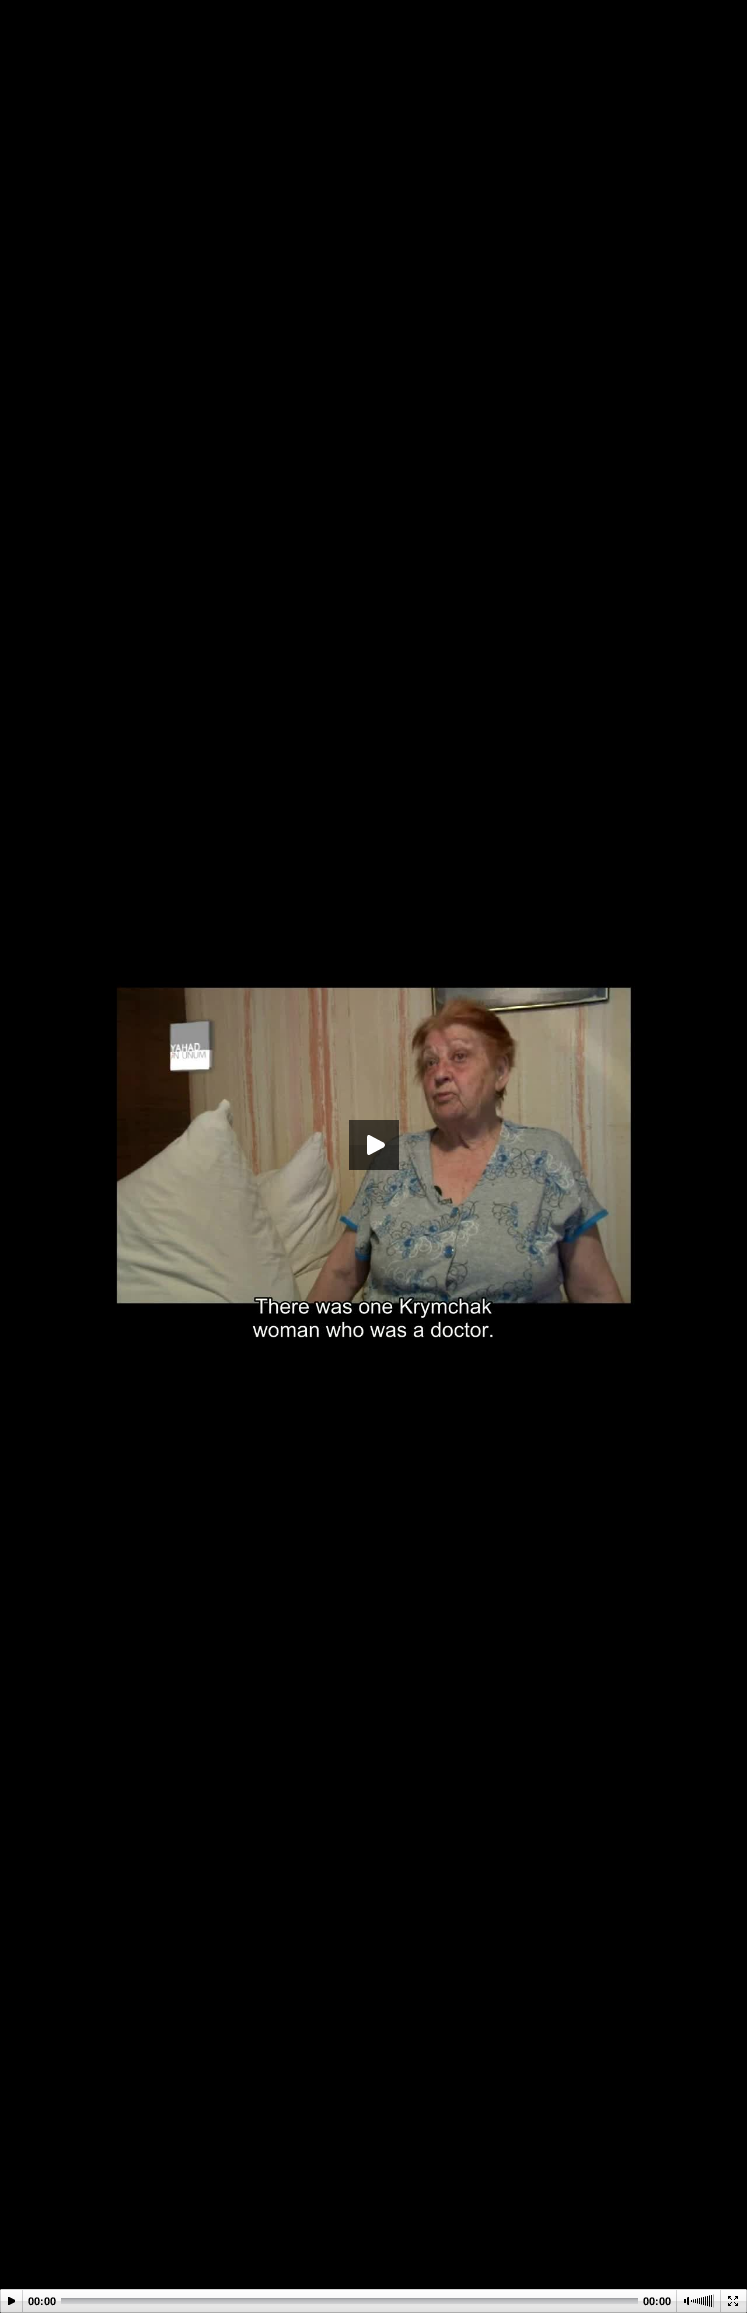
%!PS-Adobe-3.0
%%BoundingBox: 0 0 747 2313
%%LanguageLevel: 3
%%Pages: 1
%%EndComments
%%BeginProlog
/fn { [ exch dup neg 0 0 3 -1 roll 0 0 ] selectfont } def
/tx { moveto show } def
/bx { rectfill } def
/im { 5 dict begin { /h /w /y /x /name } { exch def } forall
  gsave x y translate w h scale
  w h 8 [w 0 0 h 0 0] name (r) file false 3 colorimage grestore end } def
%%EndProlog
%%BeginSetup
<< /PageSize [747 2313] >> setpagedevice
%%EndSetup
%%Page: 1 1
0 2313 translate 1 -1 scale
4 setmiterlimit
0 setgray
0 0 747 2313 bx
(image0.raw) 116 982 519 356 im
(image1.raw) 349 1120 50 50 im
(image2.raw) 367 1135 18 20 im
(image3.raw) 0 2289 1 24 im
(image4.raw) 1 2289 745 24 im
(image3.raw) 746 2289 1 24 im
(image5.raw) 8 2297 7 8 im
(image6.raw) 22 2290 1 22 im
/LiberationSans-Bold 11 fn
(00:00) 28 2305 tx
(image7.raw) 61 2298 577 6 im
(00:00) 643 2305 tx
(image6.raw) 676 2290 1 22 im
(image8.raw) 684 2297 5 8 im
(image9.raw) 693 2294 21 14 im
(image10.raw) 691 2295 21 12 im
(image6.raw) 720 2290 1 22 im
(image11.raw) 728 2296 10 10 im
showpage
%%EOF
